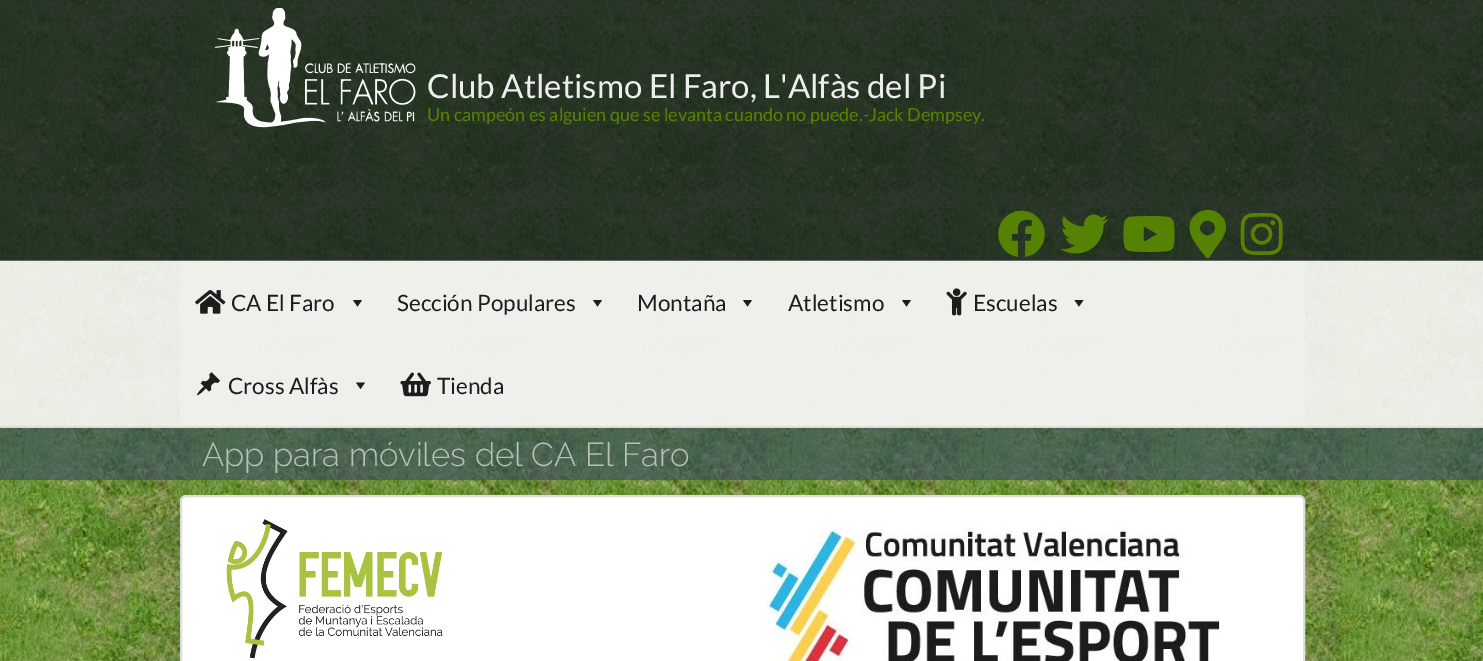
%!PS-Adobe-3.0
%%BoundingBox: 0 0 1483 661
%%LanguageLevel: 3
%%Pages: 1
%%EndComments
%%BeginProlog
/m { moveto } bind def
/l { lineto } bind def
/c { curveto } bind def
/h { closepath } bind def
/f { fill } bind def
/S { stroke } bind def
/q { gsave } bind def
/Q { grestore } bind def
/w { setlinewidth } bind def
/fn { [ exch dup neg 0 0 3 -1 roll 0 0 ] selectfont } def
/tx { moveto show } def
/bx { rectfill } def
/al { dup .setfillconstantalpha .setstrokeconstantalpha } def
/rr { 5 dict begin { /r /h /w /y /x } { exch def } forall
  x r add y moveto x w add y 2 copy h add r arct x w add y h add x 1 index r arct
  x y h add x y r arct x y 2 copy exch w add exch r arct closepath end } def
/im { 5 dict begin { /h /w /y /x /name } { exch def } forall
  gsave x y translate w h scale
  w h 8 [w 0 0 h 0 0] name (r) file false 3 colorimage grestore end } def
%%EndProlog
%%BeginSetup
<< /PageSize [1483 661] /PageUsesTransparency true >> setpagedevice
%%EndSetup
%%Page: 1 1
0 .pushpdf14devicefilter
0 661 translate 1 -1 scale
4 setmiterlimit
1 setgray
0 0 1483 661 bx
(image0.raw) 0 0 1483 661 im
0.8 al
0.078 0.118 0.118 setrgbcolor
0 0 1483 260 bx
1 al
0.4 setgray
0 260 1483 2 bx
(image1.raw) 214 8 202 120 im
/Lato-Regular 33 fn
0.933 setgray
(Club Atletismo El Faro, L'Alfàs del Pi) 427 98 tx
/Lato-Regular 18 fn
0.337 0.51 0.012 setrgbcolor
(Un campeón es alguien que se levanta cuando no puede.-Jack Dempsey.) 427 121 tx
(image2.raw) 998 210 47 47 im
(image3.raw) 1060 214 49 40 im
(image4.raw) 1123 216 52 36 im
1206 257 m 1201 251 1191 239 1190 231 c 1186 212 1212 202 1223 218 c 1231 230 1221 240 1214 250 c 1209 258 l 1208 258 1206 258 1206 257 c h 1202 233 m 1209 240 1220 230 1213 223 c 1206 216 1195 226 1202 233 c h f
(image5.raw) 1240 213 43 42 im
0.9 al
0.973 setgray
0 261 1483 165 bx
0.906 setgray
0 426 1483 2 bx
0.933 0.941 0.922 setrgbcolor
180 261 1125 165 bx
1 al
(image6.raw) 195 290 31 24 im
/Lato-Regular 22.5 fn
0.114 setgray
(CA El Faro) 231 311 tx
362 300 m 357.5 306.5 l 353 300 l h f
(Sección Populares) 397 311 tx
602 300 m 597.5 306.5 l 593 300 l h f
(Montaña) 637 311 tx
752 300 m 747.5 306.5 l 743 300 l h f
(Atletismo) 788 311 tx
911 300 m 906.5 306.5 l 902 300 l h f
(image7.raw) 946 288 21 28 im
(Escuelas) 973 311 tx
1083.5 300 m 1079 306.5 l 1074.5 300 l h f
(image8.raw) 197 372 23 24 im
(Cross Alfàs) 228 394 tx
365 382.5 m 360.5 389 l 356 382.5 l h f
(image9.raw) 400 372 31 25 im
(Tienda) 437 394 tx
0.6 al
0.204 0.286 0.369 setrgbcolor
0 428 1483 52 bx
/Raleway-Light 33 fn
1 al
0.718 0.757 0.725 setrgbcolor
(App para móviles del CA El Faro) 202 466 tx
1 setgray
181 496 1123 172 5 rr q f Q
0.867 setgray
2 w
S
(image10.raw) 226 519 217 140 im
(image11.raw) 766 519 454 142 im
.poppdf14devicefilter showpage
%%EOF
